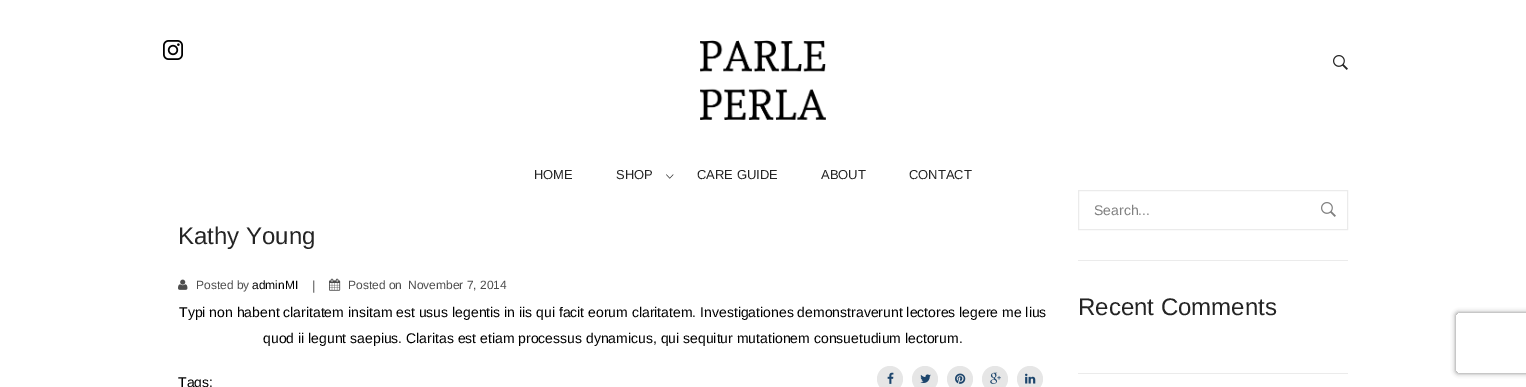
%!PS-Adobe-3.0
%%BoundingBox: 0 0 1526 387
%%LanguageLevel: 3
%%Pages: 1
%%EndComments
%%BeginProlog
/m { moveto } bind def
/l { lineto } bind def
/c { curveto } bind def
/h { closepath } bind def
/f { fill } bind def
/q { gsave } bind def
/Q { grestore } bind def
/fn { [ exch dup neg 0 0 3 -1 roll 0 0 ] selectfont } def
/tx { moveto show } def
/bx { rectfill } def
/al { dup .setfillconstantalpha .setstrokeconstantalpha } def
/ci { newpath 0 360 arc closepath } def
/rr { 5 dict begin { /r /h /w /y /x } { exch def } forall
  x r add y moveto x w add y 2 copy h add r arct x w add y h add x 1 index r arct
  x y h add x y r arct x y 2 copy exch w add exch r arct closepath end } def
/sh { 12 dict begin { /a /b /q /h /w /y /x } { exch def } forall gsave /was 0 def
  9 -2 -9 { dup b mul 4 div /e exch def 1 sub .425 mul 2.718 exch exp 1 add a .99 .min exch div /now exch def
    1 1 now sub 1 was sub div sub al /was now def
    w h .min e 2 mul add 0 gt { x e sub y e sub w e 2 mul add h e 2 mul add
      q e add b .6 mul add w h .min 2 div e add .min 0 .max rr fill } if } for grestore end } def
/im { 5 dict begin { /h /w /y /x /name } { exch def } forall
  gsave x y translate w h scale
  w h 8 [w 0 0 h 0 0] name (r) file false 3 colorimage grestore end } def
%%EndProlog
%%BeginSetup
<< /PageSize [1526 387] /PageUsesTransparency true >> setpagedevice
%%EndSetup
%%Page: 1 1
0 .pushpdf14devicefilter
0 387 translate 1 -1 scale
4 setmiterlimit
1 setgray
0 0 1526 387 bx
(image0.raw) 163 40 20 20 im
(image1.raw) 700 40 126 80 im
(image2.raw) 1333 55 15 15 im
/LiberationSans-Regular 13 fn
0.141 setgray
(HOME) 534 179 tx
(SHOP) 616 179 tx
(image3.raw) 666 174 8 5 im
(CARE GUIDE) 697 179 tx
(ABOUT) 821 179 tx
(CONTACT) 909 179 tx
/LiberationSans-Regular 24 fn
(Kathy Young) 178 244 tx
(image4.raw) 178 279 10 11 im
/LiberationSans-Regular 12 fn
0.302 setgray
(Posted by) 196 289 tx
0 setgray
(adminMI) 252 289 tx
/LiberationSans-Regular 13 fn
0.302 setgray
(|) 312 290 tx
(image5.raw) 329 278 12 13 im
/LiberationSans-Regular 12 fn
(Posted on) 348 289 tx
(November 7, 2014) 408 289 tx
/LiberationSans-Regular 14 fn
0 setgray
(Typi non habent claritatem insitam est usus legentis in iis qui facit eorum claritatem. Investigationes demonstraverunt lectores legere me lius) 179 317 tx
(quod ii legunt saepius. Claritas est etiam processus dynamicus, qui sequitur mutationem consuetudium lectorum.) 263 343 tx
(Tags:) 178 387 tx
0.902 setgray
890 379 13 ci f
(image6.raw) 887 372 7 12 im
925 379 13 ci f
(image7.raw) 920 374 11 9 im
960 379 13 ci f
(image8.raw) 955 373 11 11 im
995 379 13 ci f
(image9.raw) 990 372 11 12 im
1030 379 13 ci f
(image10.raw) 1025 373 11 11 im
0.922 setgray
1078 260 270 1 bx
1078.5 190.5 269 39 rectstroke
0.502 setgray
(Search...) 1094 215 tx
(image11.raw) 1321 202 15 15 im
0.922 setgray
1078 373 270 1 bx
/LiberationSans-Regular 24 fn
0.141 setgray
(Recent Comments) 1078 315 tx
q
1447 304 m 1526 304 l 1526 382 l 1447 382 l h 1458 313 m 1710 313 l 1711 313 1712 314 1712 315 c 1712 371 l 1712 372 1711 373 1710 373 c 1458 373 l 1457 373 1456 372 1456 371 c 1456 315 l 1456 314 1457 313 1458 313 c h eoclip newpath
0.502 setgray
1456 313 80 60 2 2.5 1 sh
Q
.poppdf14devicefilter showpage
%%EOF
